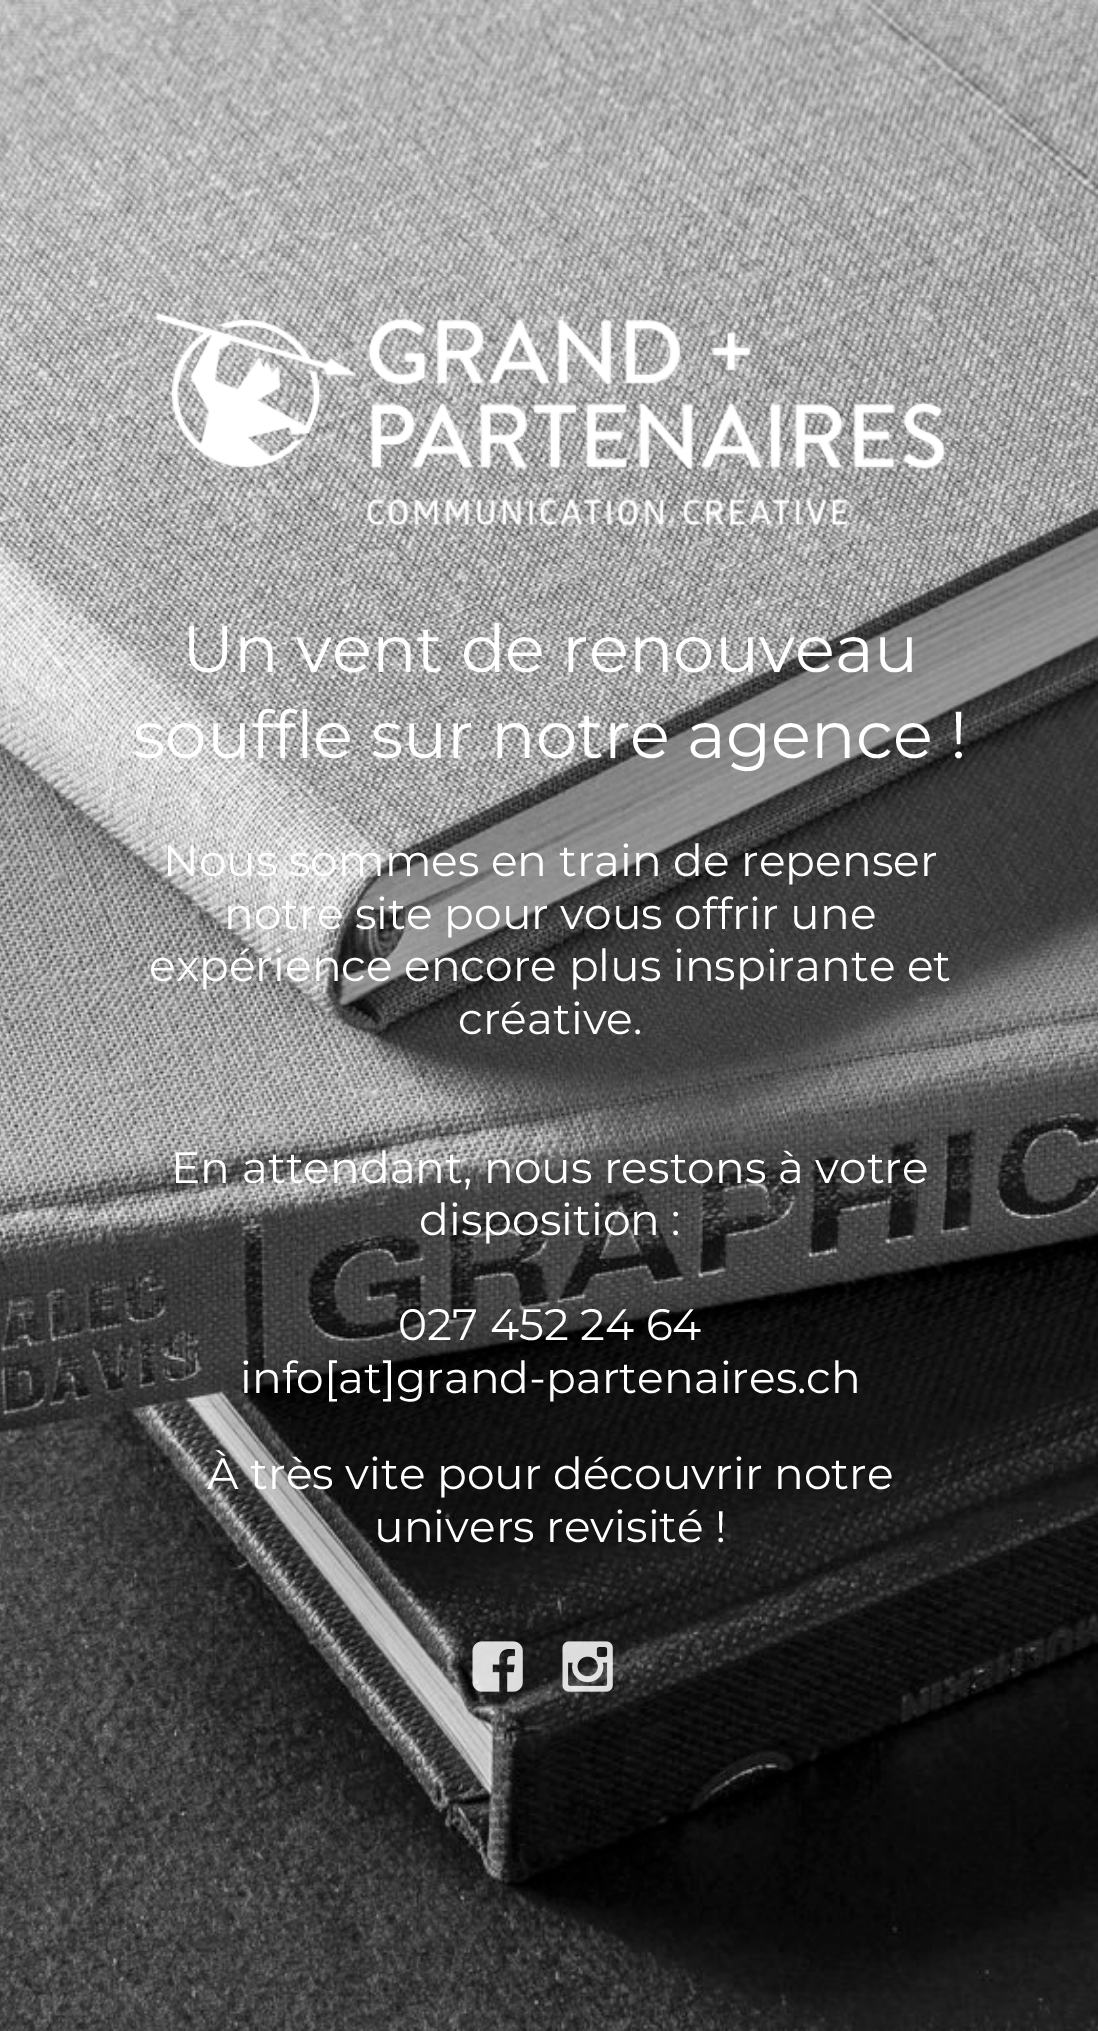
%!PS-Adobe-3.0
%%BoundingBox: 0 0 1098 2031
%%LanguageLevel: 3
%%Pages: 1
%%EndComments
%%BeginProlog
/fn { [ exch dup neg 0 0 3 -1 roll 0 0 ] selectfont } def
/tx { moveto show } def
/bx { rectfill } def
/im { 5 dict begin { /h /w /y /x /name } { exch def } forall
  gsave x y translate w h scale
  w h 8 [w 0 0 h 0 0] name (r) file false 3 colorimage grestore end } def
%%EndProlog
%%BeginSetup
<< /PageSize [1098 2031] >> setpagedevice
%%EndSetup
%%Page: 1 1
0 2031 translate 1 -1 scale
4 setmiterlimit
1 setgray
0 0 1098 2031 bx
(image0.raw) 0 0 1098 2031 im
(image1.raw) 155 312 791 214 im
/Montserrat-Thin 66 fn
(Un vent de renouveau) 182 672 tx
(souffle sur notre agence !) 133 758 tx
/Montserrat-Thin 44 fn
(Nous sommes en train de repenser) 163 876 tx
(notre site pour vous offrir une) 224 929 tx
(expérience encore plus inspirante et) 149 981 tx
(créative.) 458 1034 tx
(En attendant, nous restons à votre) 171 1183 tx
(disposition :) 419 1235 tx
(027 452 24 64) 398 1340 tx
(info[at]grand-partenaires.ch) 240 1393 tx
(À très vite pour découvrir notre) 207 1489 tx
(univers revisité !) 374 1542 tx
(image2.raw) 472 1641 51 51 im
(image3.raw) 562 1641 51 51 im
showpage
%%EOF
